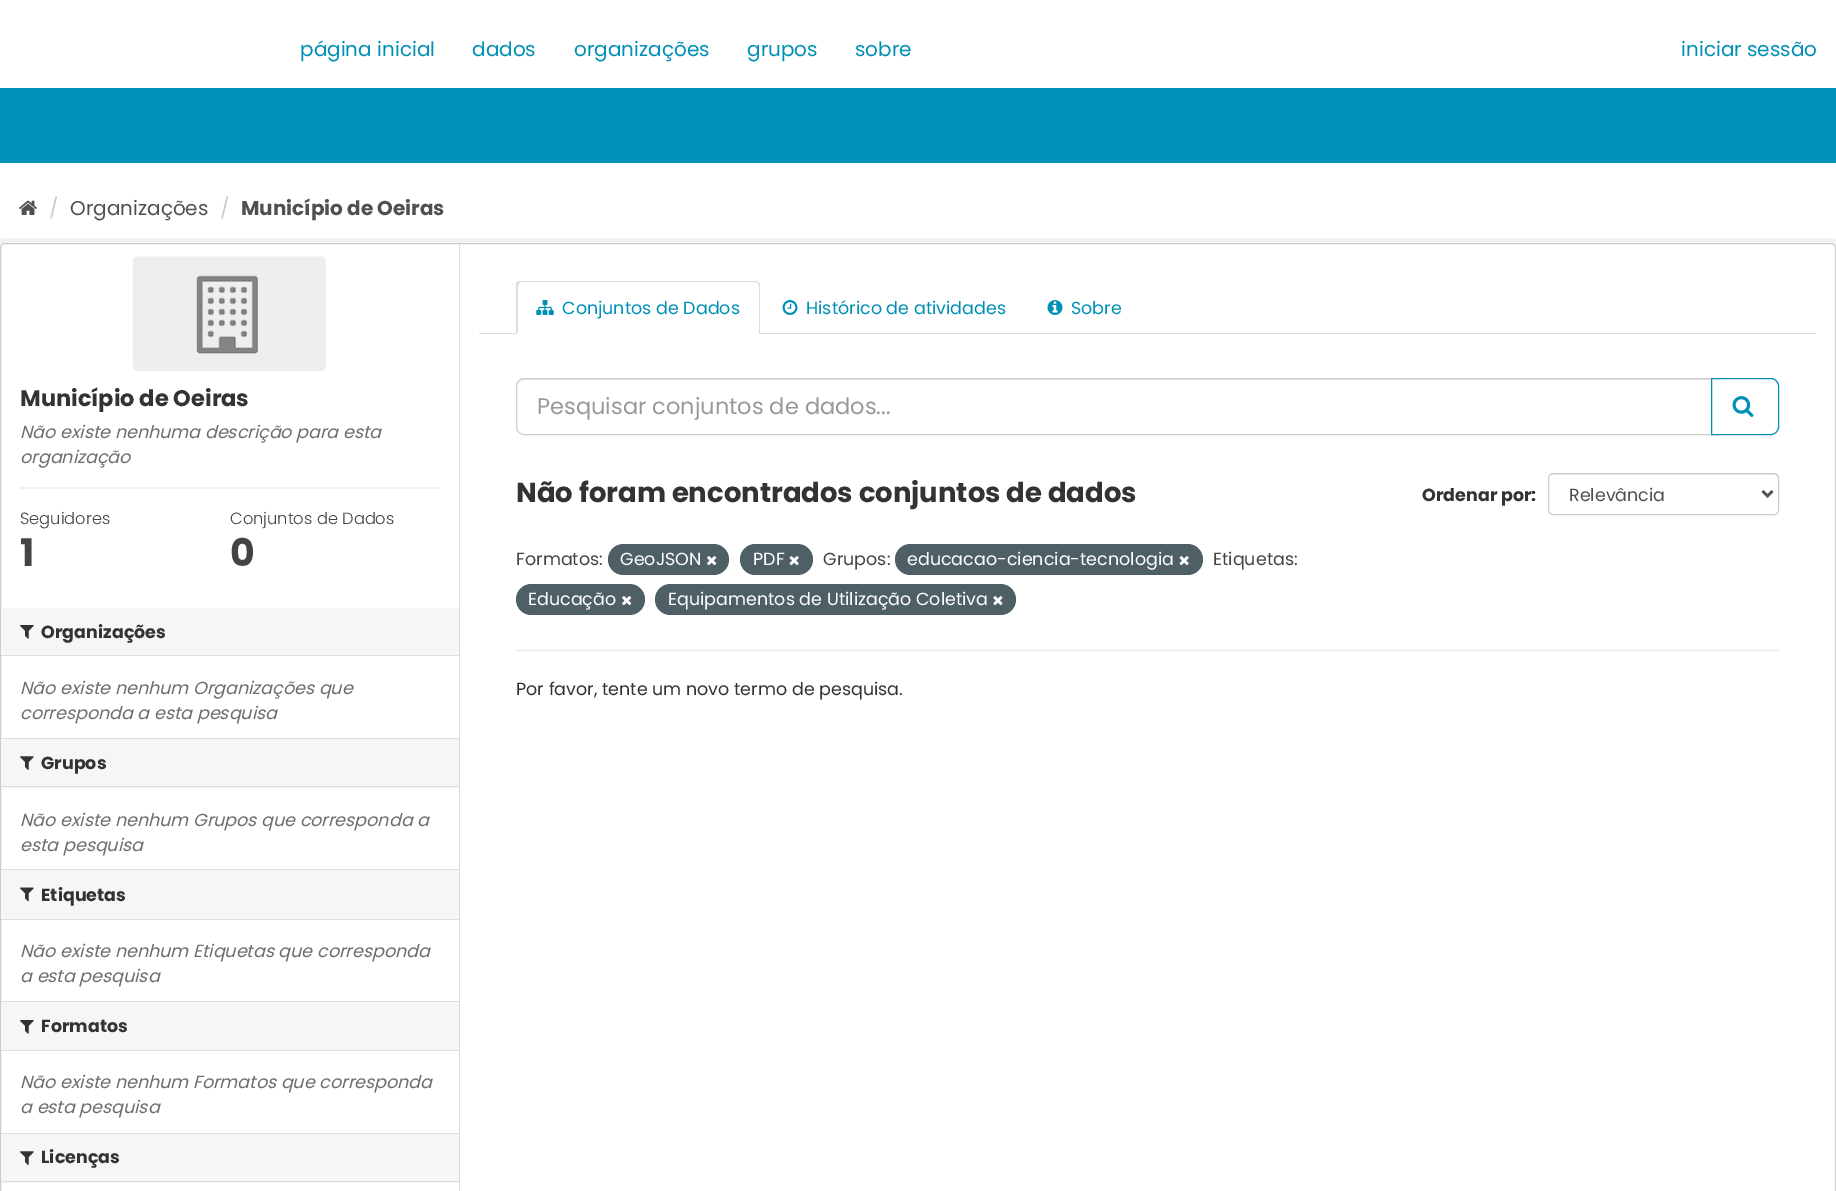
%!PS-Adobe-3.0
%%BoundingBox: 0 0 1836 1191
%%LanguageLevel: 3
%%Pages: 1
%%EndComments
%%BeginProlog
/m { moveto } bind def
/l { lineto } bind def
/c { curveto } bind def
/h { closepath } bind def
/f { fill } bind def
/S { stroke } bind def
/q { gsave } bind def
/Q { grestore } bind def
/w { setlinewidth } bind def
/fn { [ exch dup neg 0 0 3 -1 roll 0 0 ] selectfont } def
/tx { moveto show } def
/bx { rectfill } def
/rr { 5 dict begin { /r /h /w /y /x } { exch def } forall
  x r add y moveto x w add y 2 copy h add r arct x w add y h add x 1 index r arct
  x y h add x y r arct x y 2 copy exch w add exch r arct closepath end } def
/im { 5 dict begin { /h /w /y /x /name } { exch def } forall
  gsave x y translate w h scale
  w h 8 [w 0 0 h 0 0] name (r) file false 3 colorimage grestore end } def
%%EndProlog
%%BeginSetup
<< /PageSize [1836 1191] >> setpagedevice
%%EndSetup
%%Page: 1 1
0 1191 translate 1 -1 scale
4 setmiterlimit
1 setgray
0 0 1836 1191 bx
0 0.561 0.714 setrgbcolor
0 88 1836 75 bx
/Poppins-Regular 20 fn
(página inicial) 300 56 tx
(dados) 472 56 tx
(organizações) 574 56 tx
(grupos) 747 56 tx
(sobre) 855 56 tx
(iniciar sessão) 1681 56 tx
(image0.raw) 19 200 18 15 im
0.8 setgray
(/) 49 215 tx
0.314 setgray
(Organizações) 70 215 tx
0.8 setgray
(/) 220 215 tx
/Poppins-Bold 20 fn
0.314 setgray
(Município de Oeiras) 241 215 tx
0.949 setgray
5 w
-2.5 240.5 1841 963 7.5 rr S
1 setgray
0.5 243.5 1835 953 4.5 rr q f Q
0.8 setgray
1 w
S
(image1.raw) 132 256 194 115 im
/Poppins-Bold 22.5 fn
0.2 setgray
(Município de Oeiras) 20 406 tx
/Poppins-Italic 17.5 fn
0.431 setgray
(Não existe nenhuma descrição para esta) 20 438 tx
(organização) 20 463 tx
0.867 setgray
1.2 w
[1.25 1.25] 0 setdash
20 488 m 440 488 l S
/Poppins-Light 16.25 fn
0.267 setgray
(Seguidores) 20 524 tx
/Poppins-Bold 38 fn
(1) 20 566 tx
/Poppins-Light 16.25 fn
(Conjuntos de Dados) 230 524 tx
/Poppins-Bold 38 fn
(0) 230 566 tx
0.965 setgray
5 608 m 459 608 l 459 656 l 1 656 l 1 612 l 1 610 3 608 5 608 c h f
0.867 setgray
1 655 458 1 bx
(image2.raw) 20 625 14 14 im
/Poppins-Bold 17.5 fn
0.2 setgray
(Organizações) 41 638 tx
/Poppins-Italic 17.5 fn
0.431 setgray
(Não existe nenhum Organizações que) 20 694 tx
(corresponda a esta pesquisa) 20 719 tx
0.965 setgray
1 739 458 49 bx
0.867 setgray
1 738 458 1 bx
1 786 458 1 bx
(image3.raw) 20 756 14 14 im
/Poppins-Bold 17.5 fn
0.2 setgray
(Grupos) 41 769 tx
/Poppins-Italic 17.5 fn
0.431 setgray
(Não existe nenhum Grupos que corresponda a) 20 826 tx
(esta pesquisa) 20 851 tx
0.965 setgray
1 870 458 49 bx
0.867 setgray
1 869 458 1 bx
1 919 458 1 bx
(image4.raw) 20 887 14 15 im
/Poppins-Bold 17.5 fn
0.2 setgray
(Etiquetas) 41 901 tx
/Poppins-Italic 17.5 fn
0.431 setgray
(Não existe nenhum Etiquetas que corresponda) 20 957 tx
(a esta pesquisa) 20 982 tx
0.965 setgray
1 1002 458 48 bx
0.867 setgray
1 1001 458 1 bx
1 1050 458 1 bx
(image2.raw) 20 1020 14 14 im
/Poppins-Bold 17.5 fn
0.2 setgray
(Formatos) 41 1032 tx
/Poppins-Italic 17.5 fn
0.431 setgray
(Não existe nenhum Formatos que corresponda) 20 1088 tx
(a esta pesquisa) 20 1113 tx
0.965 setgray
1 1134 458 49 bx
0.867 setgray
1 1133 458 1 bx
1 1181 458 1 bx
(image3.raw) 20 1151 14 14 im
/Poppins-Bold 17.5 fn
0.2 setgray
(Licenças) 41 1163 tx
0.867 setgray
459 244 1 947 bx
479 333 1337 1 bx
1 setgray
521 281 m 755 281 l 758 281 760 283 760 286 c 760 334 l 516 334 l 516 286 l 516 283 518 281 521 281 c h f
0.867 setgray
521 282 m 520 282 519 283 519 284 c 517 282 l 519 281 l 757 281 l 759 283 l 758 283 l 755 282 l h f
760 334 m 760 286 l 760 285 760 283 759 283 c 758 283 l 759 284 759 285 759 286 c 759 332 l 758 332 l h f
516 334 m 516 284 l 517 282 l 519 284 l 518 286 l 518 332 l h f
(image5.raw) 536 300 18 15 im
/Poppins-Regular 17.5 fn
0 0.561 0.714 setrgbcolor
(Conjuntos de Dados) 562 314 tx
(image6.raw) 782 300 16 15 im
(Histórico de atividades) 806 314 tx
(image7.raw) 1047 300 16 15 im
(Sobre) 1071 314 tx
0.867 setgray
516 650.5 m 1779 650.5 l S
0.925 setgray
524 380 m 1711 380 l 1711 379 l 524 379 l 520 379 518 382 518 386 c 518 383 520 380 524 380 c h f
0.8 setgray
1 w
[] 0 setdash
524 378.5 m 1712.5 378.5 l 1712.5 434.5 l 524 434.5 l 520 434.5 516.5 431 516.5 427 c 516.5 386 l 516.5 382 520 378.5 524 378.5 c h S
/Poppins-Regular 22.5 fn
0.6 setgray
(Pesquisar conjuntos de dados...) 537 414 tx
1 setgray
1711.5 378.5 m 1771 378.5 l 1775 378.5 1778.5 382 1778.5 386 c 1778.5 427 l 1778.5 431 1775 434.5 1771 434.5 c 1711.5 434.5 l h q f Q
0 0.561 0.714 setrgbcolor
S
(image8.raw) 1732 396 22 21 im
/Poppins-Bold 27.5 fn
0.2 setgray
(Não foram encontrados conjuntos de dados) 516 502 tx
/Poppins-Bold 17.5 fn
(Ordenar por:) 1422 501 tx
0.925 setgray
1552 475 m 1774 475 l 1776 475 1778 477 1778 479 c 1778 476 1777 474 1774 474 c 1553 474 l 1550 474 1549 476 1549 479 c 1549 477 1550 475 1552 475 c h f
0.8 setgray
1548.5 473.5 230 41 4.5 rr S
0.333 setgray
2.5 w
1762.5 491 m 1767.5 496 l 1772.5 491 l S
/Poppins-Regular 17.5 fn
0.314 setgray
(Relevância) 1569 501 tx
0.267 setgray
(Formatos:) 516 565 tx
0.306 0.373 0.396 setrgbcolor
608 544 121 31 15.5 rr f
1 setgray
(GeoJSON) 620 565 tx
(image9.raw) 707 556 10 10 im
0.306 0.373 0.396 setrgbcolor
740 544 73 31 15.5 rr f
1 setgray
(PDF) 753 565 tx
(image10.raw) 789 556 10 10 im
0.267 setgray
(Grupos:) 823 565 tx
0.306 0.373 0.396 setrgbcolor
895 544 308 31 15.5 rr f
1 setgray
(educacao-ciencia-tecnologia) 907 565 tx
(image10.raw) 1179 556 10 10 im
0.267 setgray
(Etiquetas:) 1213 565 tx
0.306 0.373 0.396 setrgbcolor
516 584 129 31 15.5 rr f
1 setgray
(Educação) 528 605 tx
(image9.raw) 622 596 10 10 im
0.306 0.373 0.396 setrgbcolor
655 584 361 31 15.5 rr f
1 setgray
(Equipamentos de Utilização Coletiva) 668 605 tx
(image11.raw) 993 596 10 10 im
0.2 setgray
(Por favor, tente um novo termo de pesquisa.) 516 695 tx
showpage
%%EOF
